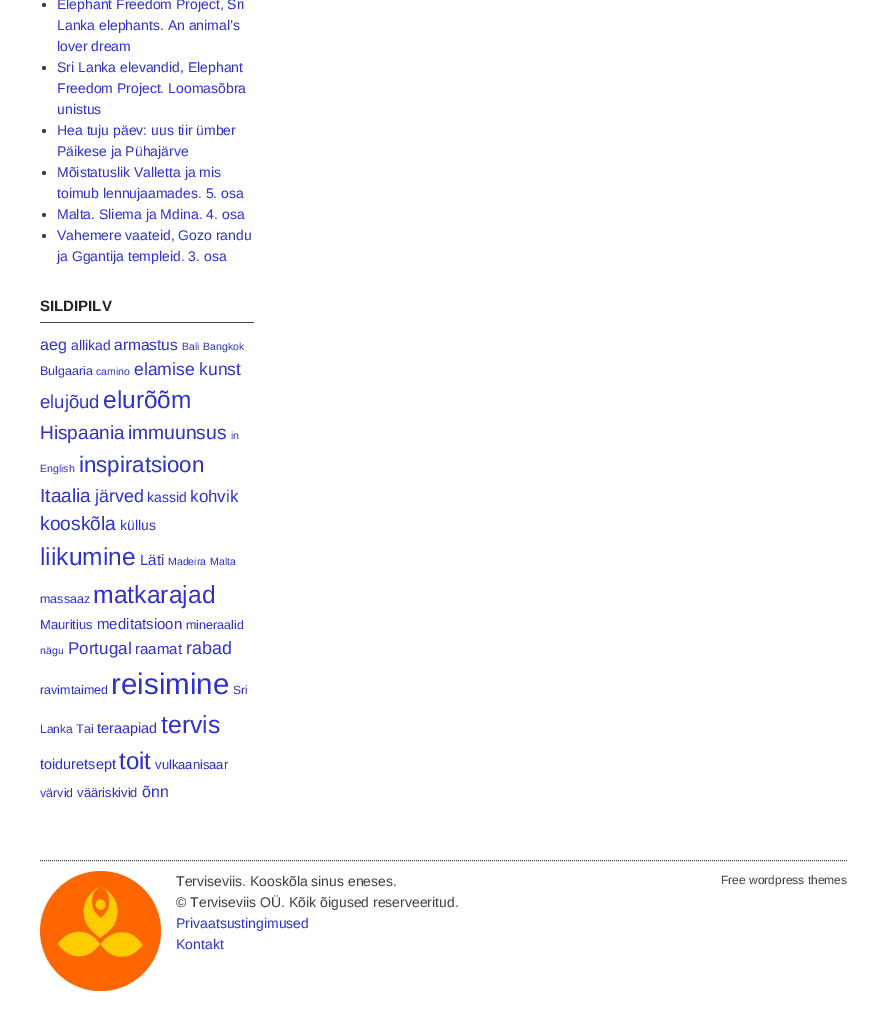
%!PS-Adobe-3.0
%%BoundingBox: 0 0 887 1019
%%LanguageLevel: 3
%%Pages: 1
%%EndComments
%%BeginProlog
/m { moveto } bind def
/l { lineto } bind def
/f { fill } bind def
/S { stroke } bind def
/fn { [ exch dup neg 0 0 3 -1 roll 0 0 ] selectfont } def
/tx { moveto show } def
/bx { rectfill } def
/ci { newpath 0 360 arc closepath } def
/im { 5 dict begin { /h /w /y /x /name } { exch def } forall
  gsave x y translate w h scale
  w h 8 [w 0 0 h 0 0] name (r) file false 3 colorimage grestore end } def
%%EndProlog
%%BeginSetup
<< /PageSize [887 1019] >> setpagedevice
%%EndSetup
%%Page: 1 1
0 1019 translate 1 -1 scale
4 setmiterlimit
1 setgray
0 0 887 1019 bx
0.251 setgray
44 5 2 ci f
/LiberationSans-Regular 14 fn
0.188 0.188 0.8 setrgbcolor
(Elephant Freedom Project, Sri) 57 9 tx
(Lanka elephants. An animal’s) 57 30 tx
(lover dream) 57 51 tx
0.251 setgray
44 68 2 ci f
0.188 0.188 0.8 setrgbcolor
(Sri Lanka elevandid, Elephant) 57 72 tx
(Freedom Project. Loomasõbra) 57 93 tx
(unistus) 57 114 tx
0.251 setgray
44 131 2 ci f
0.188 0.188 0.8 setrgbcolor
(Hea tuju päev: uus tiir ümber) 57 135 tx
(Päikese ja Pühajärve) 57 156 tx
0.251 setgray
44 173 2 ci f
0.188 0.188 0.8 setrgbcolor
(Mõistatuslik Valletta ja mis) 57 177 tx
(toimub lennujaamades. 5. osa) 57 198 tx
0.251 setgray
44 215 2 ci f
0.188 0.188 0.8 setrgbcolor
(Malta. Sliema ja Mdina. 4. osa) 57 219 tx
0.251 setgray
44 236 2 ci f
0.188 0.188 0.8 setrgbcolor
(Vahemere vaateid, Gozo randu) 57 240 tx
(ja Ggantija templeid. 3. osa) 57 261 tx
0.267 setgray
40 322 214 1 bx
/LiberationSans-Bold 15 fn
0.133 setgray
(SILDIPILV) 40 311 tx
/LiberationSans-Regular 16 fn
0.188 0.188 0.8 setrgbcolor
(aeg) 40 350 tx
/LiberationSans-Regular 14 fn
(allikad) 71 350 tx
/LiberationSans-Regular 15.5 fn
(armastus) 114 350 tx
/LiberationSans-Regular 10.5 fn
(Bali) 182 350 tx
(Bangkok) 203 350 tx
/LiberationSans-Regular 12.5 fn
(Bulgaaria) 40 375 tx
/LiberationSans-Regular 10.5 fn
(camino) 96 375 tx
/LiberationSans-Regular 17.5 fn
(elamise kunst) 134 375 tx
/LiberationSans-Regular 18.5 fn
(elujõud) 40 408 tx
/LiberationSans-Regular 24.5 fn
(elurõõm) 103 408 tx
/LiberationSans-Regular 19 fn
(Hispaania) 40 439 tx
/LiberationSans-Regular 19.25 fn
(immuunsus) 128 439 tx
/LiberationSans-Regular 10.5 fn
(in) 231 439 tx
(English) 40 472 tx
/LiberationSans-Regular 22.25 fn
(inspiratsioon) 79 472 tx
/LiberationSans-Regular 19 fn
(Itaalia) 40 502 tx
/LiberationSans-Regular 18 fn
(järved) 95 502 tx
/LiberationSans-Regular 14 fn
(kassid) 147 502 tx
/LiberationSans-Regular 17 fn
(kohvik) 190 502 tx
/LiberationSans-Regular 19.25 fn
(kooskõla) 40 530 tx
/LiberationSans-Regular 14 fn
(küllus) 120 530 tx
/LiberationSans-Regular 24.5 fn
(liikumine) 40 565 tx
/LiberationSans-Regular 15 fn
(Läti) 140 565 tx
/LiberationSans-Regular 10.5 fn
(Madeira) 168 565 tx
(Malta) 210 565 tx
/LiberationSans-Regular 12.5 fn
(massaaz) 40 603 tx
/LiberationSans-Regular 24.75 fn
(matkarajad) 93 603 tx
/LiberationSans-Regular 13 fn
(Mauritius) 40 629 tx
/LiberationSans-Regular 15 fn
(meditatsioon) 97 629 tx
/LiberationSans-Regular 12.5 fn
(mineraalid) 186 629 tx
/LiberationSans-Regular 10.5 fn
(nägu) 40 654 tx
/LiberationSans-Regular 17 fn
(Portugal) 68 654 tx
/LiberationSans-Regular 15 fn
(raamat) 135 654 tx
/LiberationSans-Regular 18 fn
(rabad) 186 654 tx
/LiberationSans-Regular 12.5 fn
(ravimtaimed) 40 694 tx
/LiberationSans-Regular 29.5 fn
(reisimine) 111 694 tx
/LiberationSans-Regular 12 fn
(Sri) 233 694 tx
(Lanka) 40 733 tx
/LiberationSans-Regular 12.5 fn
(Tai) 76 733 tx
/LiberationSans-Regular 14.5 fn
(teraapiad) 97 733 tx
/LiberationSans-Regular 24.75 fn
(tervis) 161 733 tx
/LiberationSans-Regular 14.5 fn
(toiduretsept) 40 769 tx
/LiberationSans-Regular 24 fn
(toit) 119 769 tx
/LiberationSans-Regular 13 fn
(vulkaanisaar) 155 769 tx
/LiberationSans-Regular 12.5 fn
(värvid) 40 797 tx
/LiberationSans-Regular 13 fn
(vääriskivid) 77 797 tx
/LiberationSans-Regular 16 fn
(õnn) 142 797 tx
0.267 setgray
[1 1] 0 setdash
40 860.5 m 847 860.5 l S
(image0.raw) 40 871 121 120 im
/LiberationSans-Regular 14 fn
0.251 setgray
(Terviseviis. Kooskõla sinus eneses.) 176 886 tx
(© Terviseviis OÜ. Kõik õigused reserveeritud.) 176 907 tx
0.188 0.188 0.8 setrgbcolor
(Privaatsustingimused) 176 928 tx
(Kontakt) 176 949 tx
/LiberationSans-Regular 12 fn
0.251 setgray
(Free wordpress themes) 721 884 tx
showpage
%%EOF
